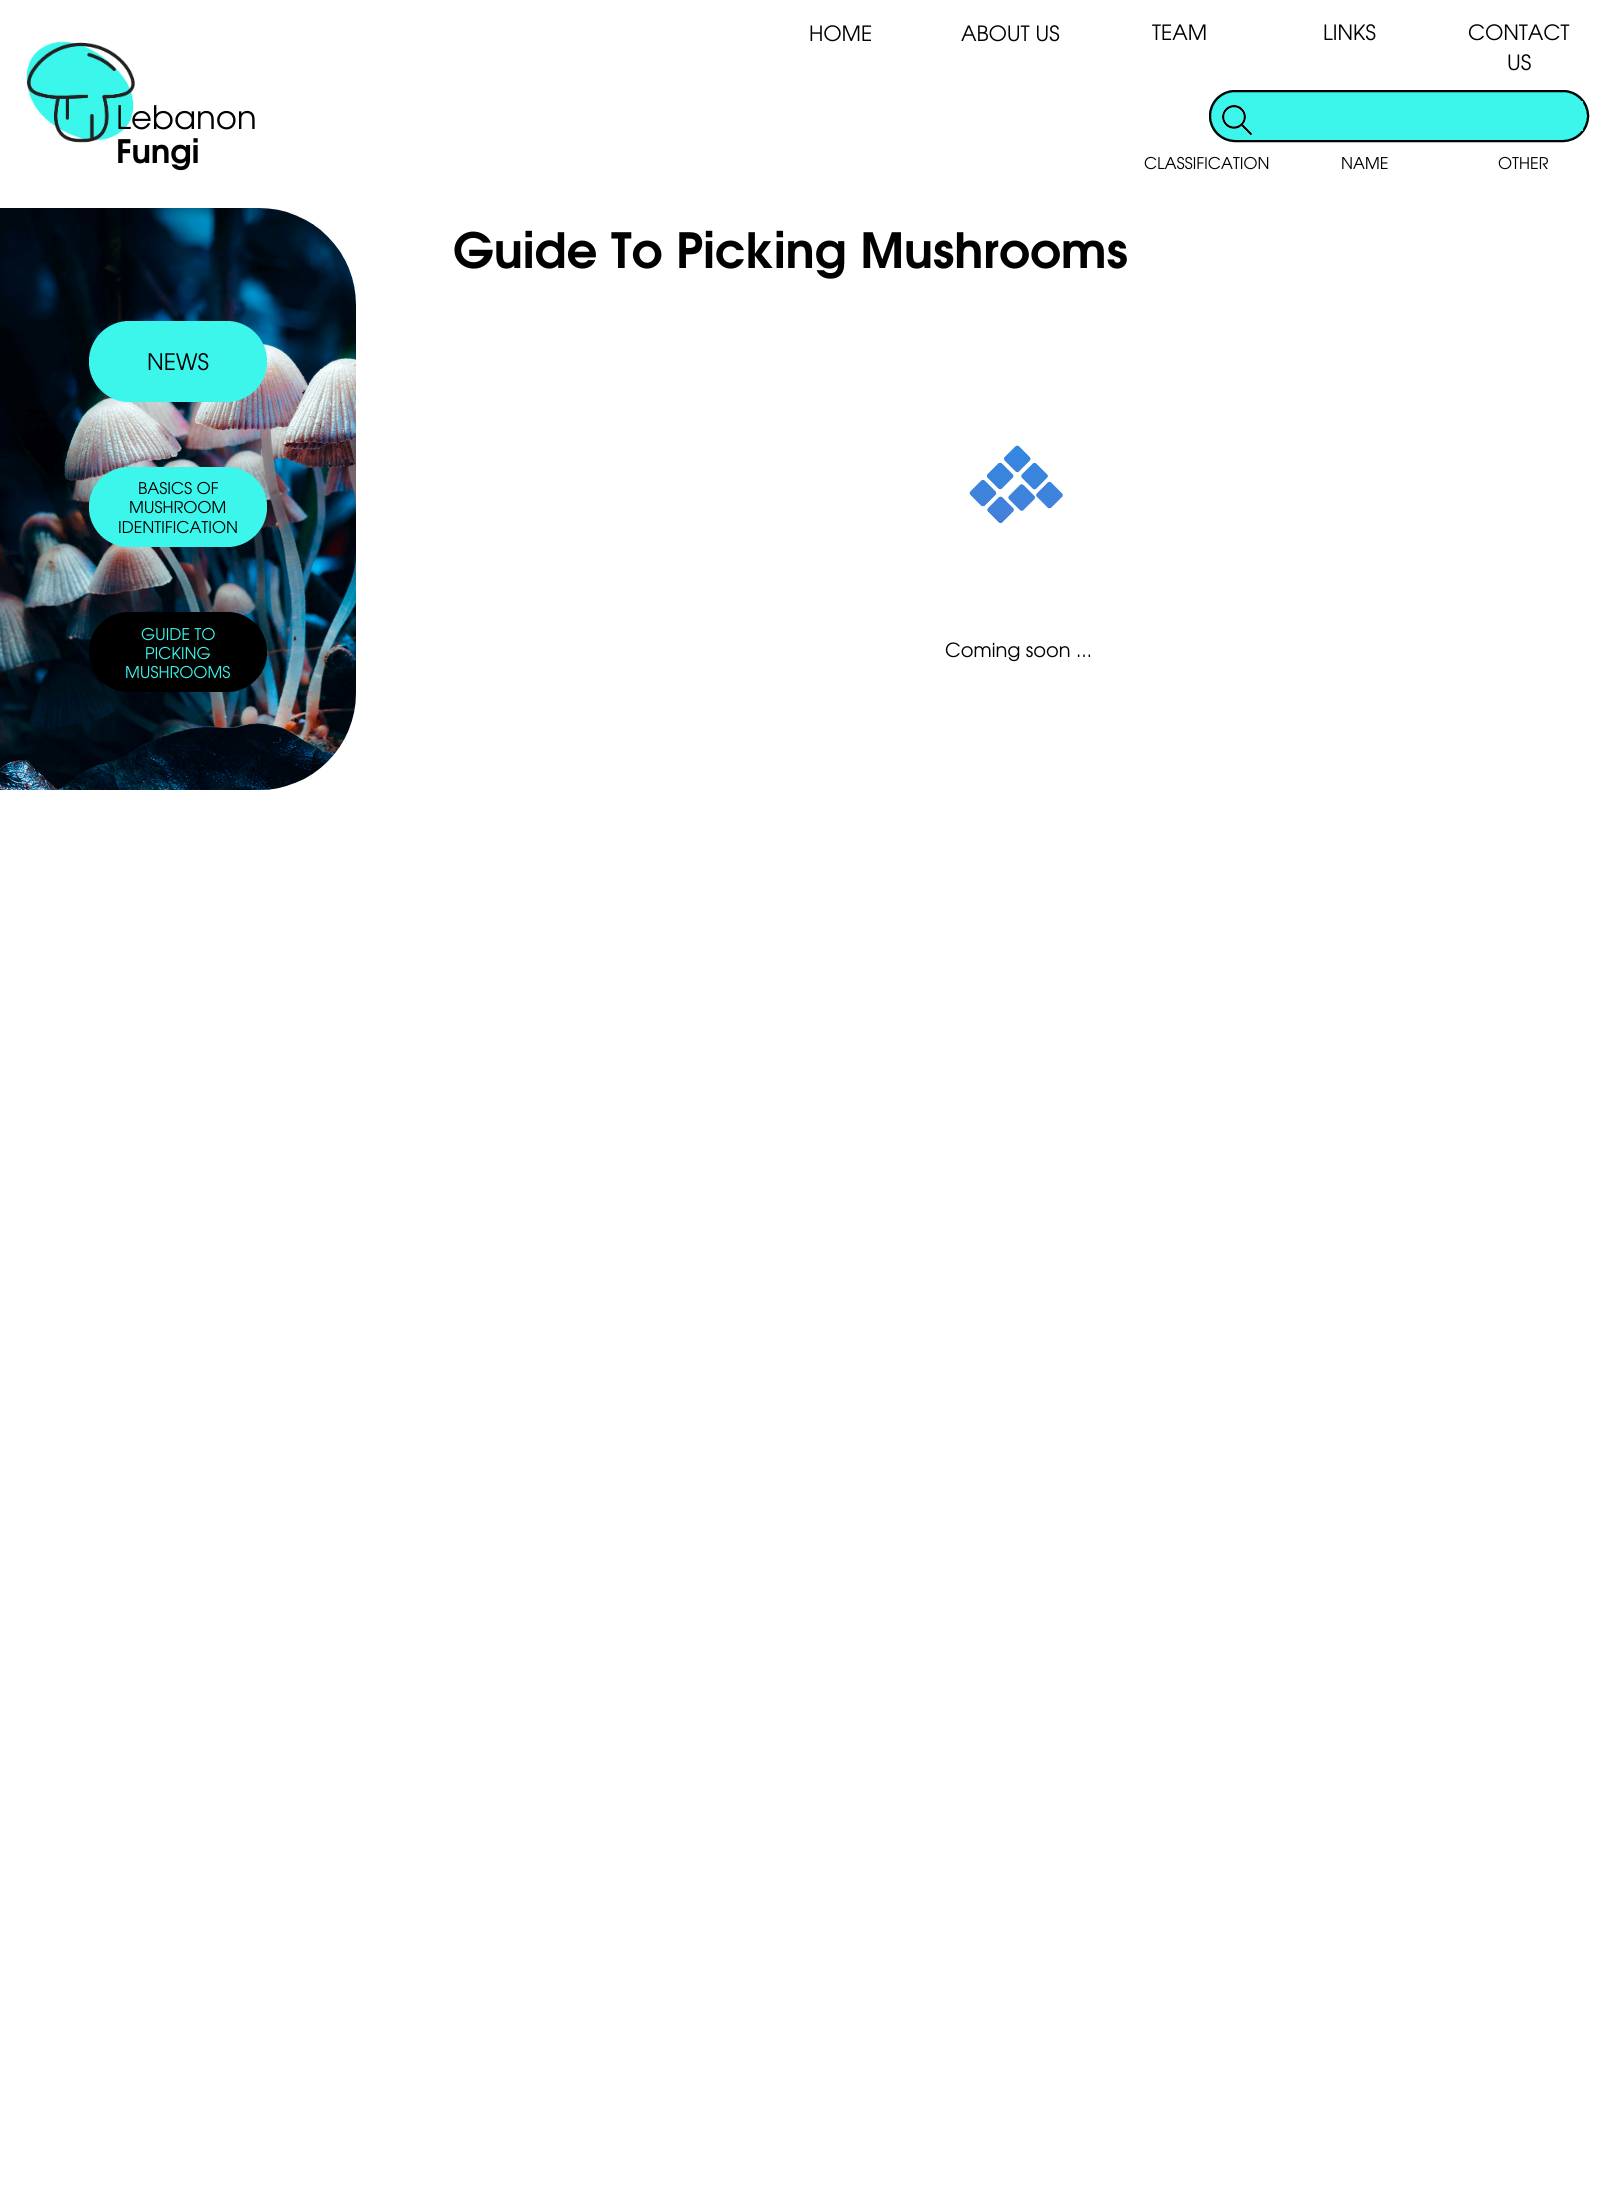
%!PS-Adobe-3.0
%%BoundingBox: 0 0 1616 2196
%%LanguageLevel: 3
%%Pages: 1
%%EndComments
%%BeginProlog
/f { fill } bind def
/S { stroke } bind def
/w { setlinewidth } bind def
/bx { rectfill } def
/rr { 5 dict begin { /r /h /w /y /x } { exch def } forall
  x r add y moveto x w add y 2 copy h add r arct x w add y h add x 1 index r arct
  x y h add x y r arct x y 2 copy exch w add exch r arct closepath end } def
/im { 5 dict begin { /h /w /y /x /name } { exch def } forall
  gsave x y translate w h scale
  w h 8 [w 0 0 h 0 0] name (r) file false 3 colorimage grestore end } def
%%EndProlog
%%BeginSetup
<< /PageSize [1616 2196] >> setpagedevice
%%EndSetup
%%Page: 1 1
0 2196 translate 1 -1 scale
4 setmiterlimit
1 setgray
0 0 1616 2196 bx
(image0.raw) 26 41 109 102 im
(image1.raw) 118 105 137 25 im
(image2.raw) 118 138 80 33 im
(image3.raw) 810 25 61 17 im
(image4.raw) 961 25 99 17 im
(image5.raw) 1152 24 54 16 im
(image6.raw) 1324 24 52 17 im
(image7.raw) 1468 24 102 17 im
(image8.raw) 1508 54 23 17 im
0.235 0.965 0.922 setrgbcolor
1209 90 380 52 26 rr f
(image9.raw) 1222 105 30 30 im
0 setgray
2 w
1210 91 378 50 25 rr S
0.235 0.965 0.922 setrgbcolor
1581 101 2 30 bx
(image10.raw) 1144 156 125 14 im
(image11.raw) 1342 157 46 12 im
(image12.raw) 1498 156 50 14 im
(image13.raw) 0 208 356 582 im
89 321 178 81 40.5 rr f
(image14.raw) 148 353 61 18 im
89 467 178 80 40 rr f
(image15.raw) 139 481 79 14 im
(image16.raw) 130 500 96 14 im
(image17.raw) 119 520 118 14 im
0 setgray
89 612 178 80 40 rr f
(image18.raw) 141 627 74 14 im
(image19.raw) 146 646 64 14 im
(image20.raw) 126 665 104 14 im
(image21.raw) 454 230 673 49 im
(image22.raw) 969 445 94 79 im
(image23.raw) 945 642 146 20 im
showpage
%%EOF
